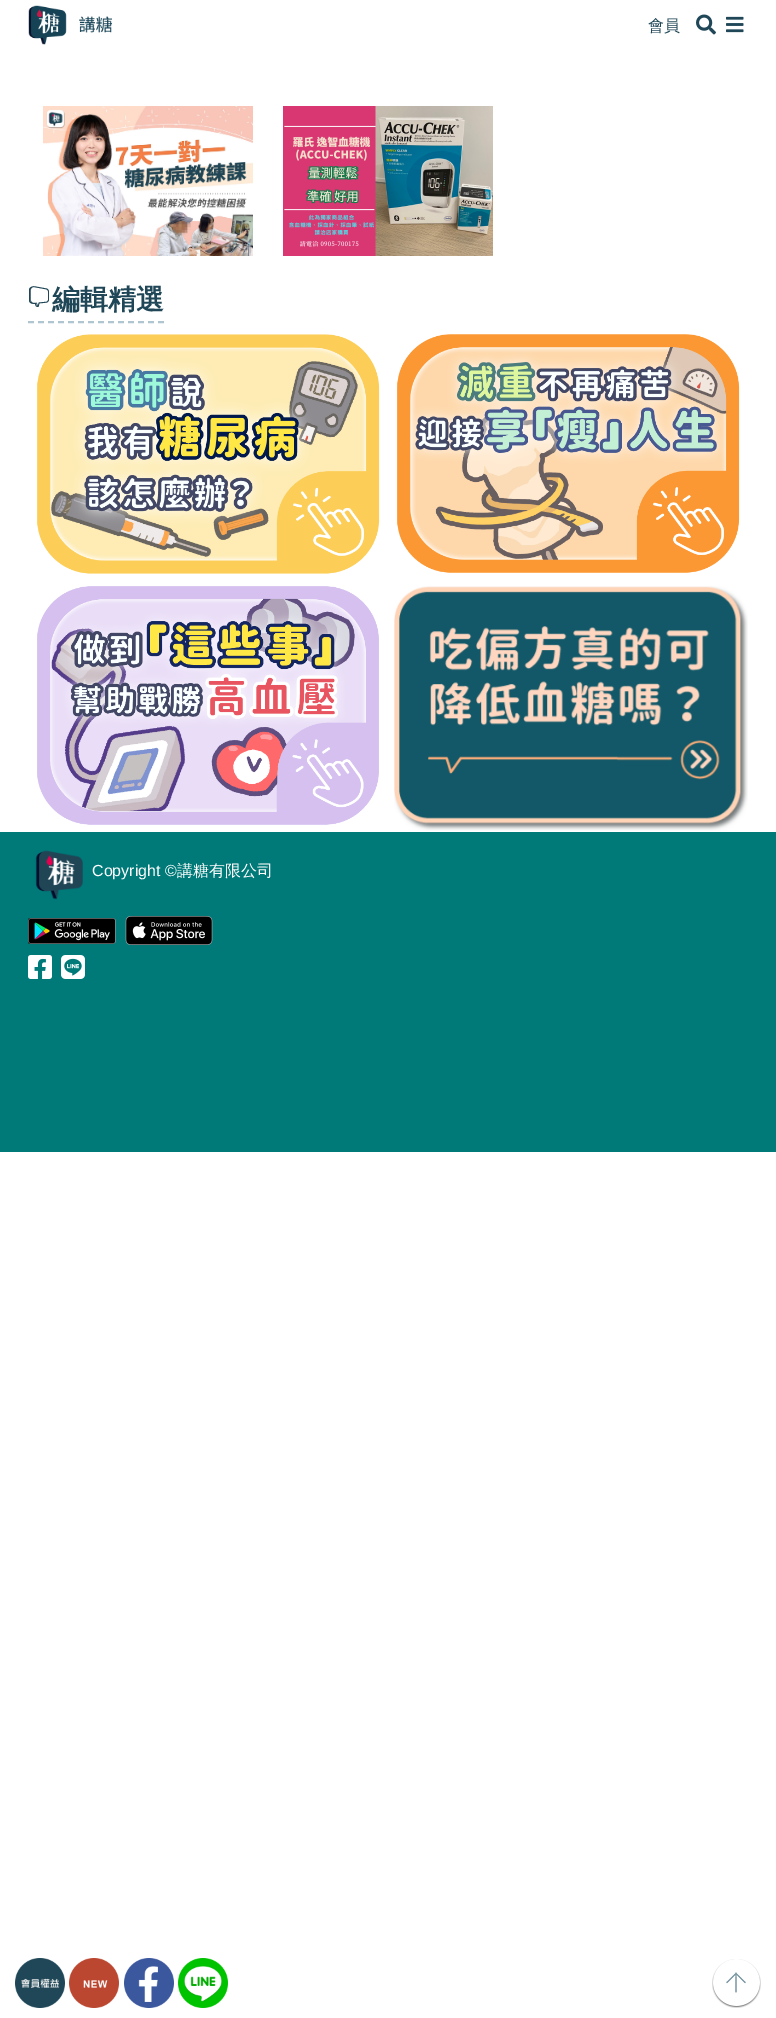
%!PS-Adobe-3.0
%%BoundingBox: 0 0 776 2018
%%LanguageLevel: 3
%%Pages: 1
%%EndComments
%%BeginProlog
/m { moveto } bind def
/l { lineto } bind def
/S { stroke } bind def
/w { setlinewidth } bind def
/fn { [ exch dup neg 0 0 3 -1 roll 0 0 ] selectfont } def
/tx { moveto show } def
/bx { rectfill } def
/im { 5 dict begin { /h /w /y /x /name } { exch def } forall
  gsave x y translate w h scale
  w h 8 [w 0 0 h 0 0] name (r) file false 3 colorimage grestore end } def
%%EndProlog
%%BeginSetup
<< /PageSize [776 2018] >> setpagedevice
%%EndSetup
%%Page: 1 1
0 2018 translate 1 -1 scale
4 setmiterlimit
1 setgray
0 0 776 2018 bx
(image0.raw) 28 5 84 40 im
/WenQuanYiZenHei-Medium 16 fn
0.122 0.278 0.341 setrgbcolor
(會員) 648 31 tx
(image1.raw) 696 14 20 21 im
(image2.raw) 726 16 18 17 im
(image3.raw) 43 106 210 150 im
(image4.raw) 283 106 210 150 im
0.686 0.776 0.816 setrgbcolor
2 w
[6 4] 0 setdash
28 322 m 164 322 l S
(image5.raw) 29 286 20 21 im
/WenQuanYiZenHei-Bold 28 fn
0.122 0.278 0.341 setrgbcolor
(編輯精選) 52 309 tx
(image6.raw) 37 334 343 240 im
(image7.raw) 397 334 343 239 im
(image8.raw) 37 586 342 239 im
(image9.raw) 394 586 354 245 im
(image10.raw) 15 1958 50 50 im
(image11.raw) 69 1958 50 50 im
(image12.raw) 124 1958 50 50 im
(image13.raw) 178 1958 50 50 im
(image14.raw) 712 1959 49 49 im
0 0.475 0.475 setrgbcolor
0 832 776 320 bx
(image15.raw) 35 850 48 50 im
/LiberationSans-Regular 16 fn
1 setgray
(Copyright ©) 92 876 tx
/WenQuanYiZenHei-Medium 16 fn
(講糖有限公司) 177 876 tx
(image16.raw) 28 918 88 26 im
(image17.raw) 125 916 88 29 im
(image18.raw) 28 955 24 24 im
(image19.raw) 61 955 24 24 im
showpage
%%EOF
